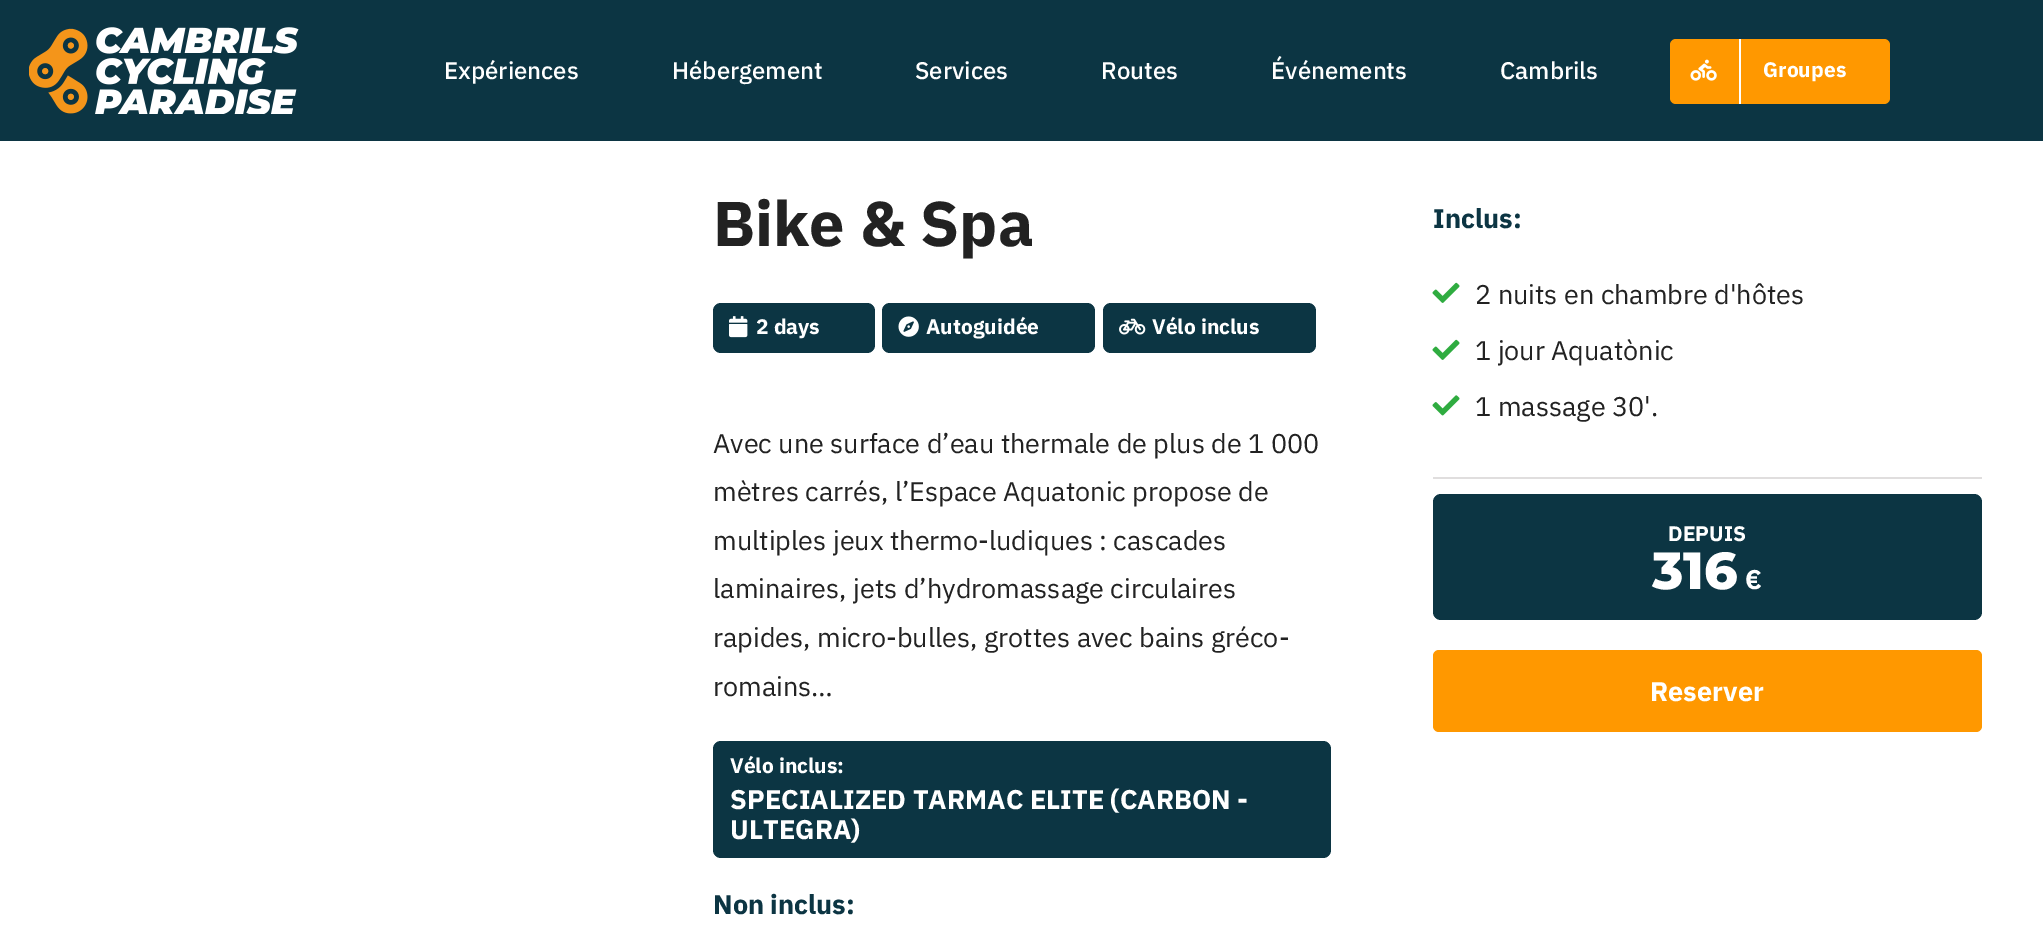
%!PS-Adobe-3.0
%%BoundingBox: 0 0 2043 931
%%LanguageLevel: 3
%%Pages: 1
%%EndComments
%%BeginProlog
/f { fill } bind def
/fn { [ exch dup neg 0 0 3 -1 roll 0 0 ] selectfont } def
/tx { moveto show } def
/bx { rectfill } def
/rr { 5 dict begin { /r /h /w /y /x } { exch def } forall
  x r add y moveto x w add y 2 copy h add r arct x w add y h add x 1 index r arct
  x y h add x y r arct x y 2 copy exch w add exch r arct closepath end } def
/im { 5 dict begin { /h /w /y /x /name } { exch def } forall
  gsave x y translate w h scale
  w h 8 [w 0 0 h 0 0] name (r) file false 3 colorimage grestore end } def
%%EndProlog
%%BeginSetup
<< /PageSize [2043 931] >> setpagedevice
%%EndSetup
%%Page: 1 1
0 931 translate 1 -1 scale
4 setmiterlimit
1 setgray
0 0 2043 931 bx
0.047 0.208 0.263 setrgbcolor
0 0 2043 141 bx
(image0.raw) 29 27 270 87 im
/IBMPlexSans-Medium 24 fn
1 setgray
(Expériences) 444 79 tx
(Hébergement) 672 79 tx
(Services) 915 79 tx
(Routes) 1101 79 tx
(Événements) 1271 79 tx
(Cambrils) 1500 79 tx
1 0.596 0 setrgbcolor
1670 39 220 65 6 rr f
1 setgray
1739 39 2 65 bx
(image1.raw) 1690 59 27 22 im
/IBMPlexSans-Bold 21 fn
(Groupes) 1763 77 tx
/IBMPlexSans-Bold 63 fn
0.133 setgray
(Bike & Spa) 713 246 tx
0.047 0.208 0.263 setrgbcolor
713 303 162 50 8 rr f
(image2.raw) 729 316 19 22 im
/IBMPlexSans-Bold 21 fn
1 setgray
(2 days) 756 334 tx
0.047 0.208 0.263 setrgbcolor
882 303 213 50 8 rr f
(image3.raw) 898 316 21 21 im
1 setgray
(Autoguidée) 926 334 tx
0.047 0.208 0.263 setrgbcolor
1103 303 213 50 8 rr f
(image4.raw) 1119 318 27 17 im
1 setgray
(Vélo inclus) 1152 334 tx
/IBMPlexSans-Regular 27 fn
0.133 setgray
(Avec une surface d’eau thermale de plus de 1 000) 713 453 tx
(mètres carrés, l’Espace Aquatonic propose de) 713 501 tx
(multiples jeux thermo-ludiques : cascades) 713 550 tx
(laminaires, jets d’hydromassage circulaires) 713 598 tx
(rapides, micro-bulles, grottes avec bains gréco-) 713 647 tx
(romains…) 713 696 tx
0.047 0.208 0.263 setrgbcolor
713 741 618 117 8 rr f
/IBMPlexSans-Bold 21 fn
1 setgray
(Vélo inclus:) 730 773 tx
/IBMPlexSans-Bold 27 fn
(SPECIALIZED TARMAC ELITE \(CARBON -) 730 809 tx
(ULTEGRA\)) 730 839 tx
0.047 0.208 0.263 setrgbcolor
(Non inclus:) 713 914 tx
(Inclus:) 1433 228 tx
(image5.raw) 1432 282 28 21 im
/IBMPlexSans-Regular 27 fn
0.133 setgray
(2 nuits en chambre d'hôtes) 1475 304 tx
(image5.raw) 1432 339 28 21 im
(1 jour Aquatònic) 1475 360 tx
(image6.raw) 1432 395 28 21 im
(1 massage 30'.) 1475 416 tx
0.878 0.871 0.871 setrgbcolor
1433 477 549 2 bx
0.047 0.208 0.263 setrgbcolor
1433 494 549 126 8 rr f
/IBMPlexSans-Bold 21 fn
1 setgray
(DEPUIS) 1668 541 tx
/Montserrat-Thin 52 fn
(316) 1652 589 tx
/IBMPlexSans-Bold 27 fn
(€) 1745 589 tx
1 0.596 0 setrgbcolor
1433 650 549 82 6 rr f
1 setgray
(Reserver) 1650 701 tx
showpage
%%EOF
